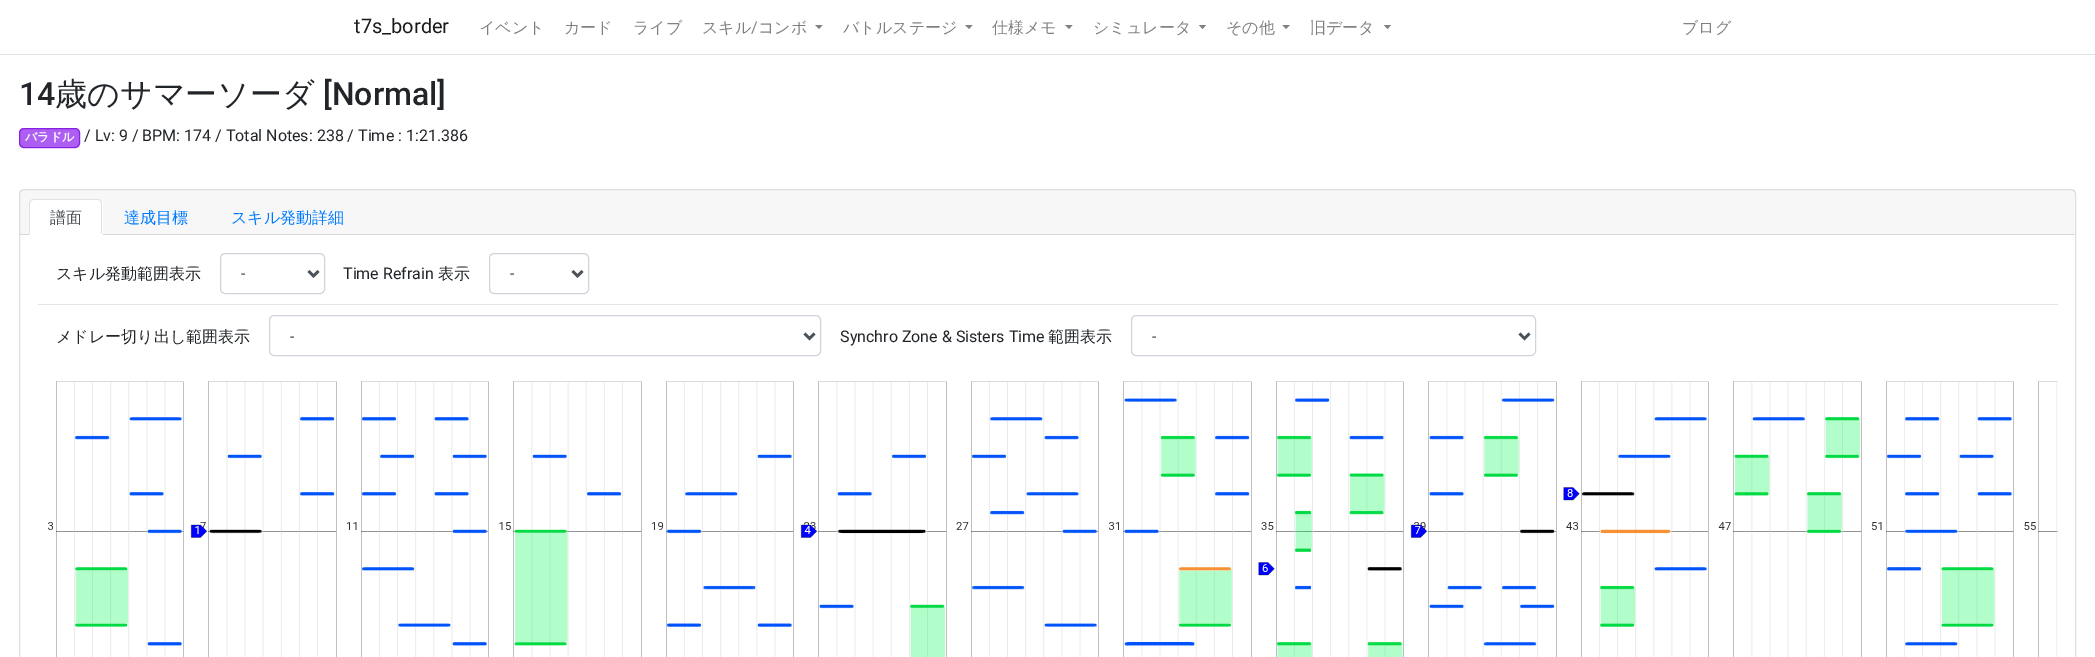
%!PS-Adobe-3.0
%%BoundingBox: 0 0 2095 657
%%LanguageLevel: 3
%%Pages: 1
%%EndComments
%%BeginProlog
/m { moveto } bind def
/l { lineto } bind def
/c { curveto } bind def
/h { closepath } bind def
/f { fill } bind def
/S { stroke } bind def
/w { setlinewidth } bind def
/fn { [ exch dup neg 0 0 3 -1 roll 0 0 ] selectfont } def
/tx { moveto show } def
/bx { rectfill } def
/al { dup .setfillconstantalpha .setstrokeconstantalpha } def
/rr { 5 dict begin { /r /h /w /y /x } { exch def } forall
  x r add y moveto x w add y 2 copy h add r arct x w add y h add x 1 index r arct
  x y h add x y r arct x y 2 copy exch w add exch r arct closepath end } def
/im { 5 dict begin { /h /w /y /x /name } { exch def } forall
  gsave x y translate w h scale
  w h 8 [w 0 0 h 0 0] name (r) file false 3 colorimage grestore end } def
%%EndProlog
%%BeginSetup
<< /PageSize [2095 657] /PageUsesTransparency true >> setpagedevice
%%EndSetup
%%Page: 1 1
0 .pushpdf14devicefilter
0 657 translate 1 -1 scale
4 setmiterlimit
1 setgray
0 0 2095 657 bx
0.871 0.886 0.902 setrgbcolor
0 54 2095 1 bx
/Roboto-Regular 20 fn
0.102 setgray
(t7s_border) 354 33 tx
/WenQuanYiZenHei-Medium 16 fn
0.502 setgray
(イベント) 479 33 tx
(カード) 564 33 tx
(ライブ) 633 33 tx
(スキル) 702 33 tx
/Roboto-Regular 16 fn
(/) 751 33 tx
/WenQuanYiZenHei-Medium 16 fn
(コンボ) 758 33 tx
815 25 m 822.5 25 l 819 29 l h f
(バトルステージ) 843 33 tx
965 25 m 972.5 25 l 969 29 l h f
(仕様メモ) 992 33 tx
1065 25 m 1072.5 25 l 1069 29 l h f
(シミュレータ) 1093 33 tx
1199 25 m 1206 25 l 1202.5 29 l h f
(その他) 1226 33 tx
1282.5 25 m 1290 25 l 1286 29 l h f
(旧データ) 1310 33 tx
1384 25 m 1391 25 l 1387.5 29 l h f
(ブログ) 1682 33 tx
/Roboto-Medium 32 fn
0.129 0.145 0.161 setrgbcolor
(14) 19 105 tx
/WenQuanYiZenHei-Medium 32 fn
(歳のサマーソーダ) 55 105 tx
/Roboto-Medium 32 fn
([Normal]) 323 105 tx
0.675 0.373 0.949 setrgbcolor
19 128 61 20 5 rr f
0.8 al
0.494 0.071 0.882 setrgbcolor
19.5 128.5 60 19 4.5 rr S
/WenQuanYiZenHei-Bold 12 fn
1 al
1 setgray
(バラドル) 25 141 tx
/Roboto-Regular 16 fn
0.129 0.145 0.161 setrgbcolor
(/ Lv: 9 / BPM: 174 / Total Notes: 238 / Time : 1:21.386) 84 141 tx
0.875 setgray
19.5 189.5 2056 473 4.5 rr S
0.03 al
0 setgray
20 190 2055 44 bx
1 al
0.847 setgray
20 234 2055 1 bx
1 setgray
34 199 m 98 199 l 101 199 103 201 103 204 c 103 235 l 29 235 l 29 204 l 29 201 31 199 34 199 c h f
0.871 0.886 0.902 setrgbcolor
34 199 m 32 199 31 200 30 200 c 31 201 l 32 200 33 200 34 200 c 98 200 l 99 200 100 200 100 201 c 101 200 l 100 200 99 199 98 199 c h f
102 234.5 m 102 204 l 102 202.5 101.5 201.5 101 200.5 c 100 201 l 100.5 202 101 203 101 204 c 101 233.5 l h f
1 setgray
29 235 m 102 235 l 102 234 l 101 234 l 30 234 l h f
0.871 0.886 0.902 setrgbcolor
30.5 200.5 m 29.5 201 29 202.5 29 204 c 29 235 l 30 234 l 30 204 l 30 203 30.5 202 31 201 c h f
/WenQuanYiZenHei-Medium 16 fn
0.286 0.314 0.341 setrgbcolor
(譜面) 50 223 tx
0 0.482 1 setrgbcolor
(達成目標) 124 223 tx
(スキル発動詳細) 231 223 tx
0.129 0.145 0.161 setrgbcolor
(スキル発動範囲表示) 56 279 tx
0.808 0.831 0.855 setrgbcolor
220.5 253.5 104 40 4.5 rr S
0.286 0.314 0.341 setrgbcolor
2.5 w
308.5 271 m 313.5 276 l 318.5 271 l S
/Roboto-Regular 16 fn
(-) 241 279 tx
0.129 0.145 0.161 setrgbcolor
(Time Refrain) 343 279 tx
/WenQuanYiZenHei-Medium 16 fn
(表示) 438 279 tx
0.808 0.831 0.855 setrgbcolor
1 w
489.5 253.5 99 40 4.5 rr S
0.286 0.314 0.341 setrgbcolor
2.5 w
572.5 271 m 577.5 276 l 582.5 271 l S
/Roboto-Regular 16 fn
(-) 510 279 tx
0.902 setgray
38 304 2020 1 bx
/WenQuanYiZenHei-Medium 16 fn
0.129 0.145 0.161 setrgbcolor
(メドレー切り出し範囲表示) 56 342 tx
0.808 0.831 0.855 setrgbcolor
1 w
269.5 315.5 551 40 4.5 rr S
0.286 0.314 0.341 setrgbcolor
2.5 w
804.5 333.5 m 809.5 338.5 l 814.5 333.5 l S
/Roboto-Regular 16 fn
(-) 290 342 tx
0.129 0.145 0.161 setrgbcolor
(Synchro Zone & Sisters Time) 840 342 tx
/WenQuanYiZenHei-Medium 16 fn
(範囲表示) 1048 342 tx
0.808 0.831 0.855 setrgbcolor
1 w
1131.5 315.5 404 40 4.5 rr S
0.286 0.314 0.341 setrgbcolor
2.5 w
1519.5 333.5 m 1524.5 338.5 l 1529.5 333.5 l S
/Roboto-Regular 16 fn
(-) 1152 342 tx
(image0.raw) 48 381 2010 276 im
.poppdf14devicefilter showpage
%%EOF
